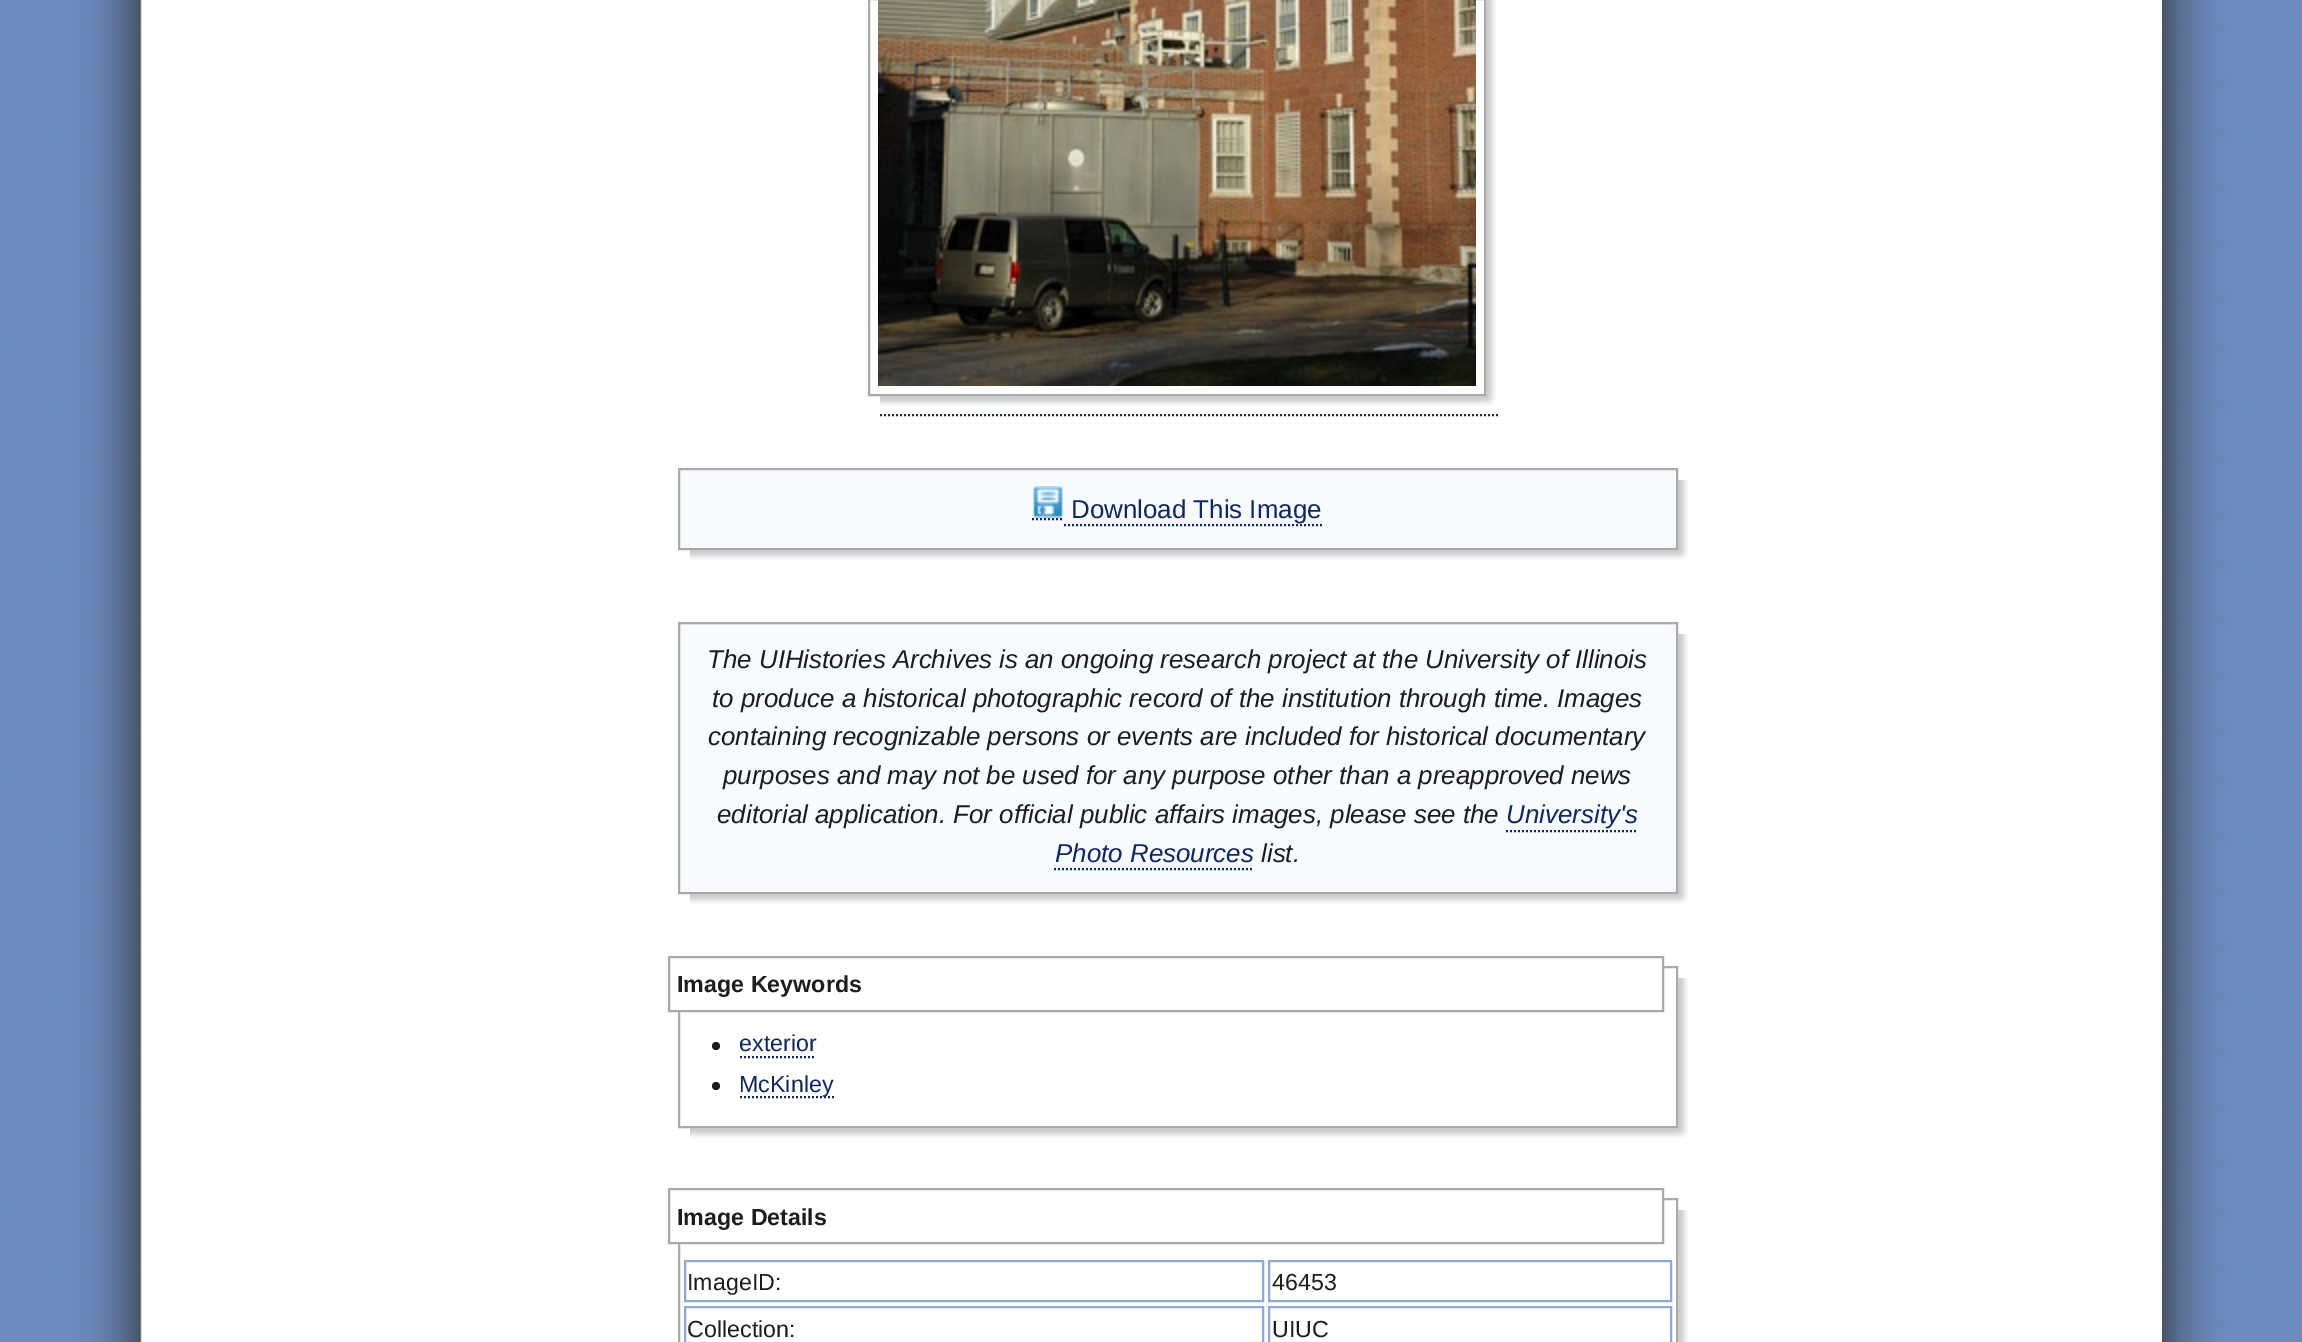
%!PS-Adobe-3.0
%%BoundingBox: 0 0 2302 1342
%%LanguageLevel: 3
%%Pages: 1
%%EndComments
%%BeginProlog
/m { moveto } bind def
/l { lineto } bind def
/h { closepath } bind def
/f { fill } bind def
/S { stroke } bind def
/q { gsave } bind def
/Q { grestore } bind def
/w { setlinewidth } bind def
/fn { [ exch dup neg 0 0 3 -1 roll 0 0 ] selectfont } def
/tx { moveto show } def
/bx { rectfill } def
/ci { newpath 0 360 arc closepath } def
/im { 5 dict begin { /h /w /y /x /name } { exch def } forall
  gsave x y translate w h scale
  w h 8 [w 0 0 h 0 0] name (r) file false 3 colorimage grestore end } def
%%EndProlog
%%BeginSetup
<< /PageSize [2302 1342] >> setpagedevice
%%EndSetup
%%Page: 1 1
0 1342 translate 1 -1 scale
4 setmiterlimit
1 setgray
0 0 2302 1342 bx
(image0.raw) 0 0 2302 1342 im
142 0 2020 1342 bx
(image1.raw) 880 0 616 406 im
0.663 setgray
2 w
869 -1 616 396 rectstroke
(image2.raw) 878 0 598 386 im
0.059 0.157 0.361 setrgbcolor
[2 2] 0 setdash
880 415 m 1498 415 l S
(image3.raw) 690 480 998 80 im
0.969 0.98 1 setrgbcolor
679 469 m 1677 469 l 1677 549 l 679 549 l h q f Q
0.663 setgray
[] 0 setdash
S
(image4.raw) 1032 486 32 32 im
/LiberationSans-Regular 25.9 fn
0.059 0.157 0.361 setrgbcolor
(Download This Image) 1071 518 tx
[2 2] 0 setdash
1032 519 m 1064 519 l S
1064 525 m 1322 525 l S
(image5.raw) 690 634 998 270 im
0.969 0.98 1 setrgbcolor
679 623 m 1677 623 l 1677 893 l 679 893 l h q f Q
0.663 setgray
[] 0 setdash
S
/LiberationSans-Italic 25.9 fn
0.114 setgray
(The UIHistories Archives is an ongoing research project at the University of Illinois) 707 668 tx
(to produce a historical photographic record of the institution through time. Images) 712 707 tx
(containing recognizable persons or events are included for historical documentary) 708 745 tx
(purposes and may not be used for any purpose other than a preapproved news) 723 784 tx
(editorial application. For official public affairs images, please see the) 717 823 tx
0.059 0.157 0.361 setrgbcolor
(University's) 1506 823 tx
[2 2] 0 setdash
1506 831 m 1638 831 l S
(Photo Resources) 1055 862 tx
1054 869 m 1254 869 l S
0.114 setgray
(list.) 1261 862 tx
(image6.raw) 690 978 998 160 im
0.663 setgray
[] 0 setdash
679 967 998 160 rectstroke
1 setgray
678 966 984 44 bx
0.663 setgray
669 957 994 54 rectstroke
/LiberationSans-Bold 23.25 fn
0.114 setgray
(Image Keywords) 677 992 tx
716 1046 4 ci f
/LiberationSans-Regular 23.25 fn
0.059 0.157 0.361 setrgbcolor
(exterior) 739 1051 tx
[2 2] 0 setdash
740 1057 m 816 1057 l S
0.114 setgray
716 1086 4 ci f
0.059 0.157 0.361 setrgbcolor
740 1097 m 834 1097 l S
(McKinley) 739 1092 tx
(image7.raw) 1678 1210 10 132 im
0.663 setgray
[] 0 setdash
679 1199 998 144 rectstroke
1 setgray
678 1198 984 44 bx
0.663 setgray
669 1189 994 54 rectstroke
/LiberationSans-Bold 23.25 fn
0.114 setgray
(Image Details) 677 1225 tx
0.561 0.659 0.831 setrgbcolor
685 1261 578 40 rectstroke
/LiberationSans-Regular 23.25 fn
0.114 setgray
(ImageID:) 687 1290 tx
0.561 0.659 0.831 setrgbcolor
1269 1261 402 40 rectstroke
0.114 setgray
(46453) 1272 1290 tx
0.561 0.659 0.831 setrgbcolor
685 1307 578 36 rectstroke
0.114 setgray
(Collection:) 687 1337 tx
0.561 0.659 0.831 setrgbcolor
1269 1307 402 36 rectstroke
0.114 setgray
(UIUC) 1272 1337 tx
showpage
%%EOF
